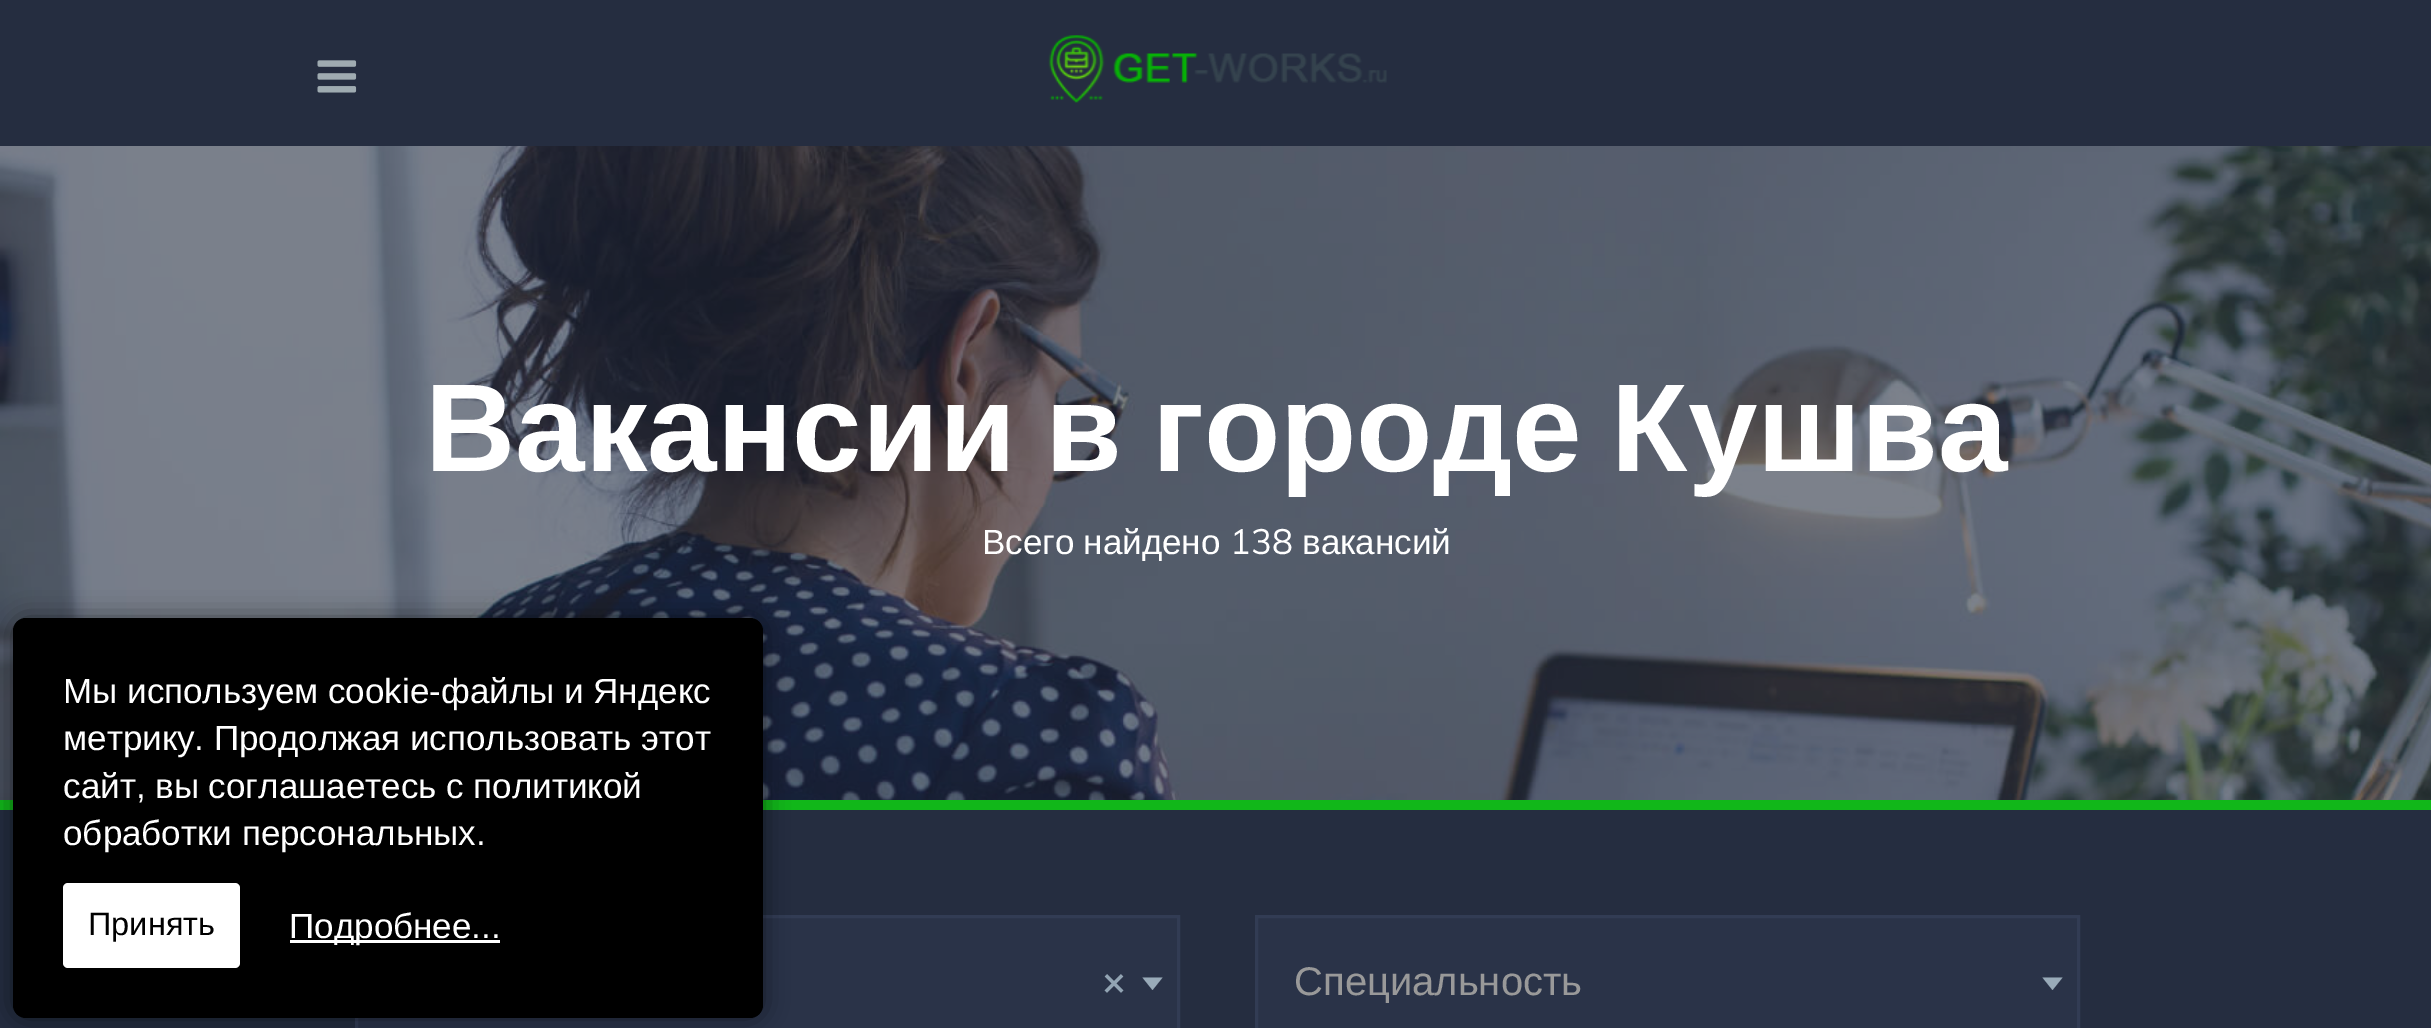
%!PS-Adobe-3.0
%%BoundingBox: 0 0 2431 1028
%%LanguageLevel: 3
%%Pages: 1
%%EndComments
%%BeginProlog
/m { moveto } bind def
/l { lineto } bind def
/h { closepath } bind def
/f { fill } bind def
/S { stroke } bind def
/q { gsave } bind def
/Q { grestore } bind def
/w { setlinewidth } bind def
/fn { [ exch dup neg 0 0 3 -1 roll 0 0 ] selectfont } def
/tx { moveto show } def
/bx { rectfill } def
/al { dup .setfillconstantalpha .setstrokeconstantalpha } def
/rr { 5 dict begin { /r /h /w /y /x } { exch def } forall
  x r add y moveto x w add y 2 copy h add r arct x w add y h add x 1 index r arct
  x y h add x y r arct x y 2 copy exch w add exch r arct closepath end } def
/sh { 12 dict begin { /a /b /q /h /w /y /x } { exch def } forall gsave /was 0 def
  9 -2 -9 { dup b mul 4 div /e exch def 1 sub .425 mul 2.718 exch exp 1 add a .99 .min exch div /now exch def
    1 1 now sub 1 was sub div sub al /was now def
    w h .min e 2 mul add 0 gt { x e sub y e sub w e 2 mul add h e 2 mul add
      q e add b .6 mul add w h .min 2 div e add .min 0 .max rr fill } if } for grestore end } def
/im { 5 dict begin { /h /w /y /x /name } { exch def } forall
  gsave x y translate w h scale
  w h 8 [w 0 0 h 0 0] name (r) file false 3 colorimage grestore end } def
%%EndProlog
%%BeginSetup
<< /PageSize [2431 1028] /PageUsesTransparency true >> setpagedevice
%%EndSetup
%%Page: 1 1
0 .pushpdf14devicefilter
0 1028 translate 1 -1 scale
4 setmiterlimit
0.145 0.176 0.251 setrgbcolor
0 0 2431 1028 bx
(image0.raw) 317 60 40 33 im
(image1.raw) 1048 35 339 68 im
(image2.raw) 0 146 2431 654 im
0.067 0.718 0.098 setrgbcolor
0 800 2431 10 bx
/LiberationSans-Bold 125 fn
1 setgray
(Вакансии) 425 471 tx
1045 471 m -5 0 32 (в городе Кушва) widthshow
/LiberationSans-Regular 35 fn
982 554 m -1 0 32 (Всего найдено) widthshow
/Muli-Regular 35 fn
(138) 1230 554 tx
/LiberationSans-Regular 35 fn
(вакансий) 1302 554 tx
0.165 0.2 0.282 setrgbcolor
356.5 916.5 m 1178.5 916.5 l 1178.5 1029.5 l 356.5 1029.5 l h q f Q
0.196 0.235 0.329 setrgbcolor
3 w
S
0 setgray
13 618 750 400 13 12.5 0.5 sh
13 618 750 400 13 rr f
1 setgray
(Мы используем cookie-файлы и Яндекс) 63 703 tx
(метрику. Продолжая использовать этот) 63 750 tx
(сайт, вы соглашаетесь с политикой) 63 798 tx
(обработки персональных.) 63 845 tx
63 883 177 85 5 rr f
/LiberationSans-Regular 32.5 fn
0 setgray
(Принять) 88 935 tx
1 setgray
290 940 210 3 bx
/LiberationSans-Regular 35 fn
(Подробнее...) 289 938 tx
/Muli-Bold 40 fn
0.573 0.643 0.702 setrgbcolor
(×) 1102 995 tx
0.6 0.671 0.725 setrgbcolor
1142.5 977.5 m 1162.5 977.5 l 1152.5 990 l h f
0.165 0.2 0.282 setrgbcolor
1256.5 916.5 m 2078.5 916.5 l 2078.5 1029.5 l 1256.5 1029.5 l h q f Q
0.196 0.235 0.329 setrgbcolor
S
/LiberationSans-Regular 40 fn
0.6 setgray
(Специальность) 1294 995 tx
0.6 0.671 0.725 setrgbcolor
2042.5 977.5 m 2062.5 977.5 l 2052.5 990 l h f
.poppdf14devicefilter showpage
%%EOF
